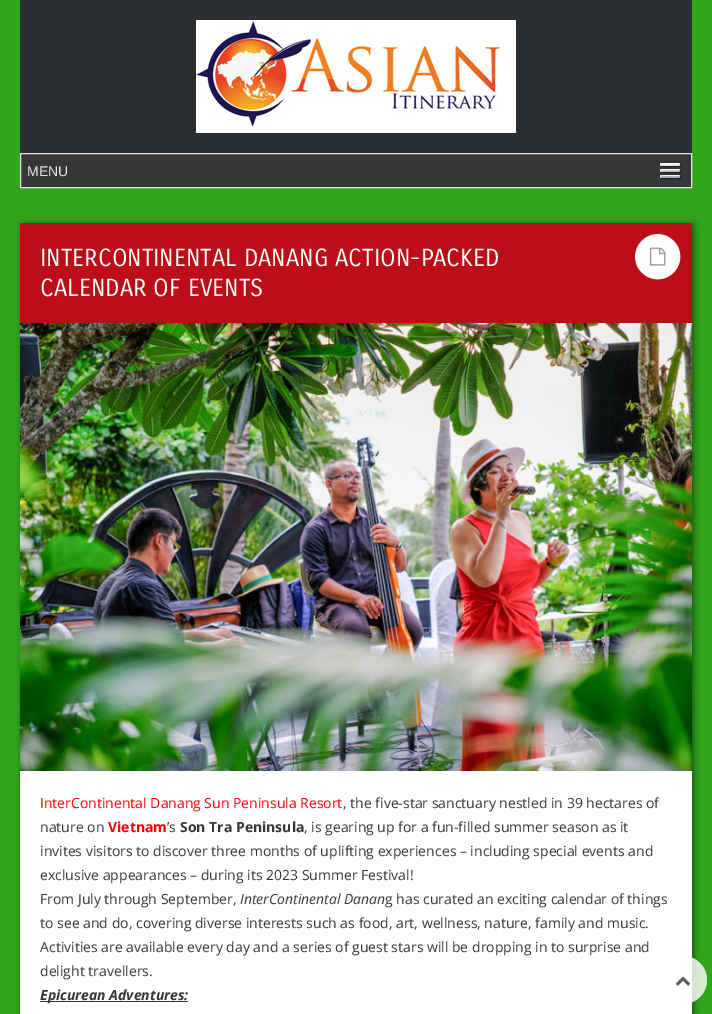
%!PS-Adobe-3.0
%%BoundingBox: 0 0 712 1014
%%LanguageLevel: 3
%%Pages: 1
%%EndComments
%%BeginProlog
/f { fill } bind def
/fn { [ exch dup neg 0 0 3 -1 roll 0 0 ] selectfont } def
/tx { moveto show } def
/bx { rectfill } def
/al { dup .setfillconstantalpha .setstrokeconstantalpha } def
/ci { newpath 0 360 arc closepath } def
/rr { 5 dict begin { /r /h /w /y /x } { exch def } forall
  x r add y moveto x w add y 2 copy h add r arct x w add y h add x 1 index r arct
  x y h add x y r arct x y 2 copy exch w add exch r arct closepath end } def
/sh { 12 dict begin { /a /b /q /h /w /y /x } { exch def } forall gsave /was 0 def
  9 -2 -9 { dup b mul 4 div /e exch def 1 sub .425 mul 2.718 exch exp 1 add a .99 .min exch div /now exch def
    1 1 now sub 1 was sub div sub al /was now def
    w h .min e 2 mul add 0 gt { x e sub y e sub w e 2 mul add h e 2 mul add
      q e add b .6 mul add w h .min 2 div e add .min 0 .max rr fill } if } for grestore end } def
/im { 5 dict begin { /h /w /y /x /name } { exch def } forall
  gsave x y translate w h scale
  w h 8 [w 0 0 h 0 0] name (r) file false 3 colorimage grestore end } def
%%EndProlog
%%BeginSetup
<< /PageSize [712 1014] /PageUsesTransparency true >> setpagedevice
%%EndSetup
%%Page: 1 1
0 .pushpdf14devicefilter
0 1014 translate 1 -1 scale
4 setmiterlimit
0.188 0.651 0.11 setrgbcolor
0 0 712 1014 bx
0.169 0.18 0.188 setrgbcolor
20 0 672 153 bx
(image0.raw) 196 20 320 113 im
0.212 setgray
21 154 670 33 bx
(image1.raw) 660 163 21 16 im
0.89 0.894 0.894 setrgbcolor
20.5 153.5 671 34 rectstroke
/LiberationSans-Regular 14 fn
0.886 setgray
(MENU) 27 176 tx
0 setgray
22 225 672 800 0 3.5 0.5 sh
0.737 0.055 0.094 setrgbcolor
20 223 672 100 bx
/CarroisGothic-Regular 24 fn
1 setgray
(INTERCONTINENTAL DANANG ACTION-PACKED) 40 266 tx
(CALENDAR OF EVENTS) 40 296 tx
(image2.raw) 635 234 46 46 im
(image3.raw) 650 247 16 19 im
(image4.raw) 20 323 672 448 im
20 771 672 243 bx
/OpenSans-Regular 14 fn
1 0 0 setrgbcolor
(InterContinental Danang Sun Peninsula Resort) 40 808 tx
0.212 setgray
(, the five-star sanctuary nestled in 39 hectares of) 343 808 tx
(nature on) 40 832 tx
/OpenSans-Bold 14 fn
1 0 0 setrgbcolor
(Vietnam) 108 832 tx
/OpenSans-Regular 14 fn
0.212 setgray
(’s) 167 832 tx
/OpenSans-Bold 14 fn
(Son Tra Peninsula) 180 832 tx
/OpenSans-Regular 14 fn
(, is gearing up for a fun-filled summer season as it) 304 832 tx
(invites visitors to discover three months of uplifting experiences – including special events and) 40 856 tx
(exclusive appearances – during its 2023 Summer Festival!) 40 880 tx
(From July through September,) 40 904 tx
/OpenSans-Italic 14 fn
(InterContinental Danan) 240 904 tx
/OpenSans-Regular 14 fn
(g has curated an exciting calendar of things) 385 904 tx
(to see and do, covering diverse interests such as food, art, wellness, nature, family and music.) 40 928 tx
(Activities are available every day and a series of guest stars will be dropping in to surprise and) 40 952 tx
(delight travellers.) 40 976 tx
40 1001 148 1 bx
/OpenSans-BoldItalic 14 fn
(Epicurean Adventures:) 40 1000 tx
0.8 al
1 setgray
683 980 24 ci f
1 al
(image5.raw) 675 976 16 10 im
.poppdf14devicefilter showpage
%%EOF
